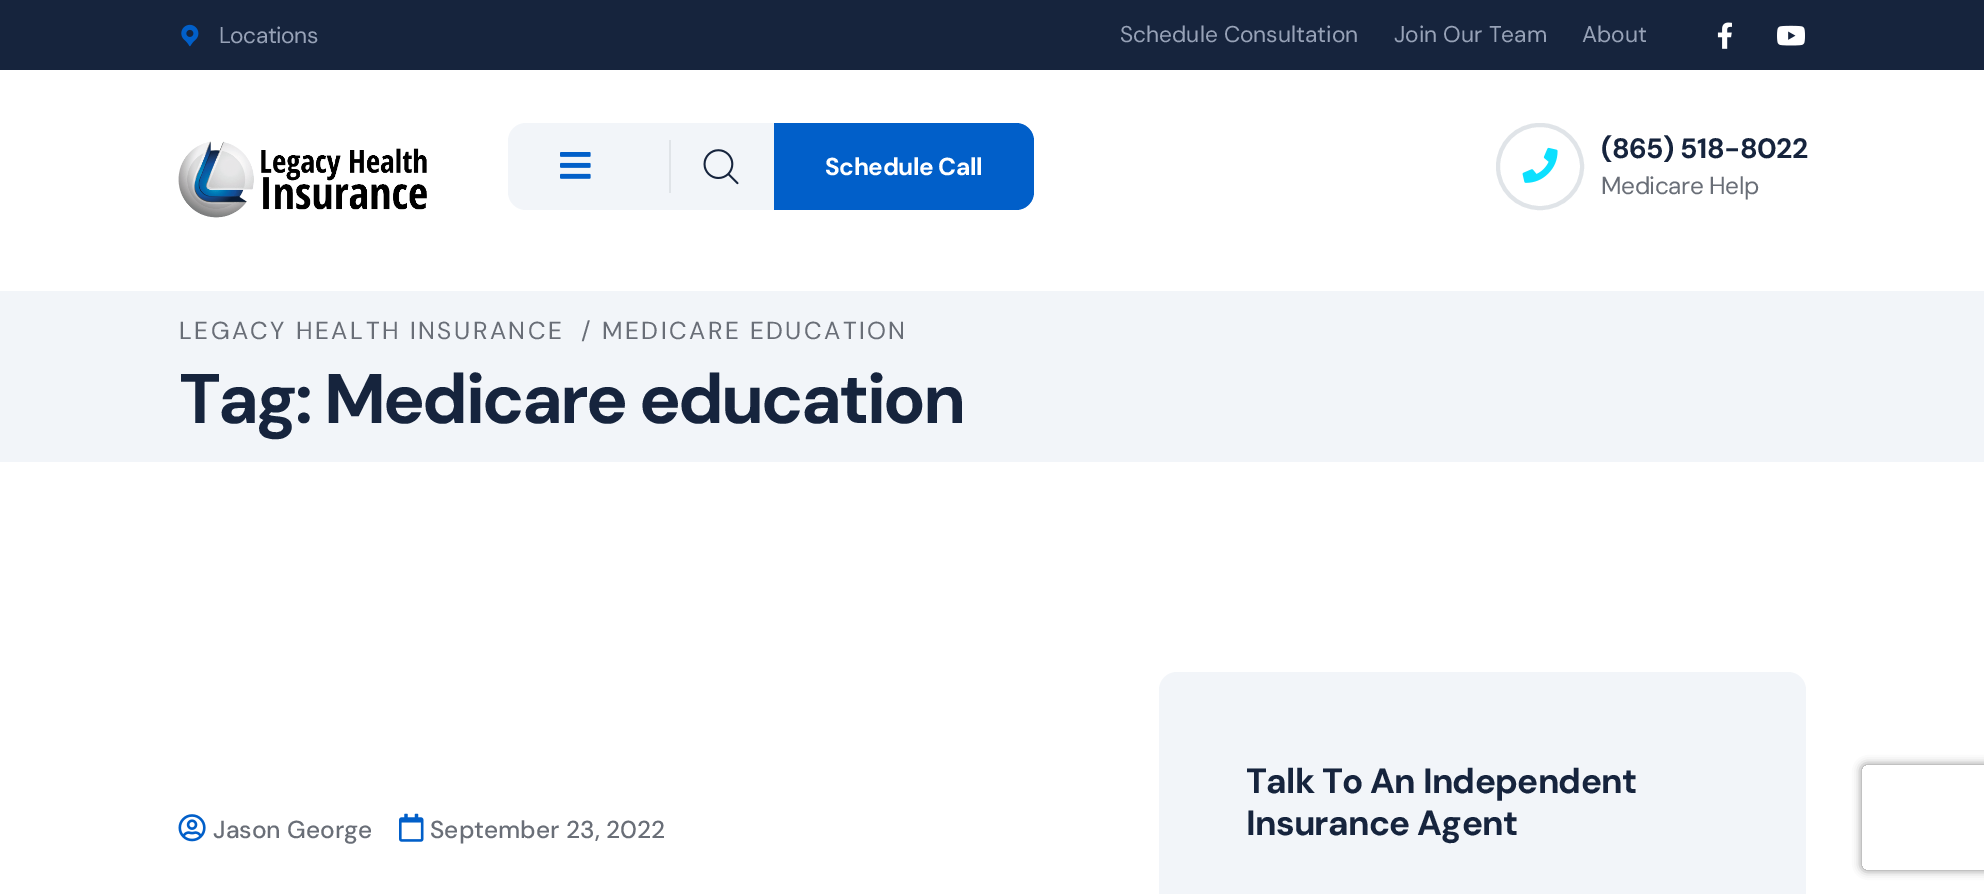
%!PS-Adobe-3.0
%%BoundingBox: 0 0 1984 894
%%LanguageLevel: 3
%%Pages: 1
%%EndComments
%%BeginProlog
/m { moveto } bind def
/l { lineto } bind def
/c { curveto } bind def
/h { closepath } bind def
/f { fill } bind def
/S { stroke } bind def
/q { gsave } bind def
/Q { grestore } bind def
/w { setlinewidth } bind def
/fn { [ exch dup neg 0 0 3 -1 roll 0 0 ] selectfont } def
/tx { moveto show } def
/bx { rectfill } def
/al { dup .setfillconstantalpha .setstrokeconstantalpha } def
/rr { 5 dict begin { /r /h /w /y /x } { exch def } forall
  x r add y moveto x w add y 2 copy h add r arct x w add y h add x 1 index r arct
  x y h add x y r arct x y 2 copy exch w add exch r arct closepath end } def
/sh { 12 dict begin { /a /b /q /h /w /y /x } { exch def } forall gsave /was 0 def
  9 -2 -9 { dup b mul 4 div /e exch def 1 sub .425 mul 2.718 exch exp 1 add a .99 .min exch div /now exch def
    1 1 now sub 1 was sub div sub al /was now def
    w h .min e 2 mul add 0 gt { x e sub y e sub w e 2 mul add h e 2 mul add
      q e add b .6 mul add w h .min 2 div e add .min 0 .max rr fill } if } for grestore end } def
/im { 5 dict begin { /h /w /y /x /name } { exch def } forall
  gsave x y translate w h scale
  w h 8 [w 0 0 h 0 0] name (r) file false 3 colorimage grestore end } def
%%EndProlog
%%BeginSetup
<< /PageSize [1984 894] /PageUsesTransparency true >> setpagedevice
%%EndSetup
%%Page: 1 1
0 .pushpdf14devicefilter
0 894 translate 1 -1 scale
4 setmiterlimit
1 setgray
0 0 1984 894 bx
0.086 0.141 0.239 setrgbcolor
0 0 1984 70 bx
(image0.raw) 181 24 18 23 im
/DMSans-Regular 22.75 fn
0.592 0.635 0.718 setrgbcolor
219 43 m -0.5 0 (Locations) ashow
(Schedule Consultation) 1120 42 tx
(Join Our Team) 1394 42 tx
(About) 1582 42 tx
(image1.raw) 1717 22 15 27 im
(image2.raw) 1777 25 28 21 im
(image3.raw) 178 141 249 77 im
0.949 0.961 0.976 setrgbcolor
508 123 526 87 18 rr f
(image4.raw) 560 152 31 27 im
0.878 0.894 0.91 setrgbcolor
669 140 2 53 bx
(image5.raw) 703 149 36 36 im
0.004 0.373 0.788 setrgbcolor
774 123 m 1016 123 l 1026 123 1034 131 1034 141 c 1034 192 l 1034 202 1026 210 1016 210 c 774 210 l h f
/DMSans-Bold 24.5 fn
1 setgray
825 175 m -0.5 0 (Schedule Call) ashow
0.878 0.894 0.91 setrgbcolor
4 w
1498 125 84 83 41.5 rr S
(image6.raw) 1522 147 36 36 im
/DMSans-Bold 28 fn
0.086 0.141 0.239 setrgbcolor
1601 158 m -0.5 0 (\(865\) 518-8022) ashow
/DMSans-Regular 24.5 fn
0.412 0.431 0.467 setrgbcolor
1601 194 m -0.5 0 (Medicare Help) ashow
0.949 0.961 0.976 setrgbcolor
0 291 1984 171 bx
0.412 0.431 0.467 setrgbcolor
179 339 m 2.45 0 (LEGACY HEALTH INSURANCE) ashow
581 339 m 2.45 0 (/ MEDICARE EDUCATION) ashow
/DMSans-Bold 70 fn
0.086 0.141 0.239 setrgbcolor
179 423 m -2.8 0 (Tag: Medicare education) ashow
(image7.raw) 178 814 28 28 im
/DMSans-Medium 24.5 fn
0.412 0.431 0.467 setrgbcolor
(Jason George) 213 838 tx
(image8.raw) 399 813 25 29 im
(September 23, 2022) 430 838 tx
0.949 0.961 0.976 setrgbcolor
1159 672 647 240 18 rr f
/DMSans-Bold 35 fn
0.086 0.141 0.239 setrgbcolor
1246 793 m -0.7 0 (Talk To An Independent) ashow
1246 835 m -0.7 0 (Insurance Agent) ashow
q
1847 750 m 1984 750 l 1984 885 l 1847 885 l h 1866 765 m 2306 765 l 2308 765 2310 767 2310 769 c 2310 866 l 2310 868 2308 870 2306 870 c 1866 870 l 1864 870 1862 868 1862 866 c 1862 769 l 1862 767 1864 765 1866 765 c h eoclip newpath
0.502 setgray
1862 765 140 105 4 4.5 1 sh
Q
.poppdf14devicefilter showpage
%%EOF
